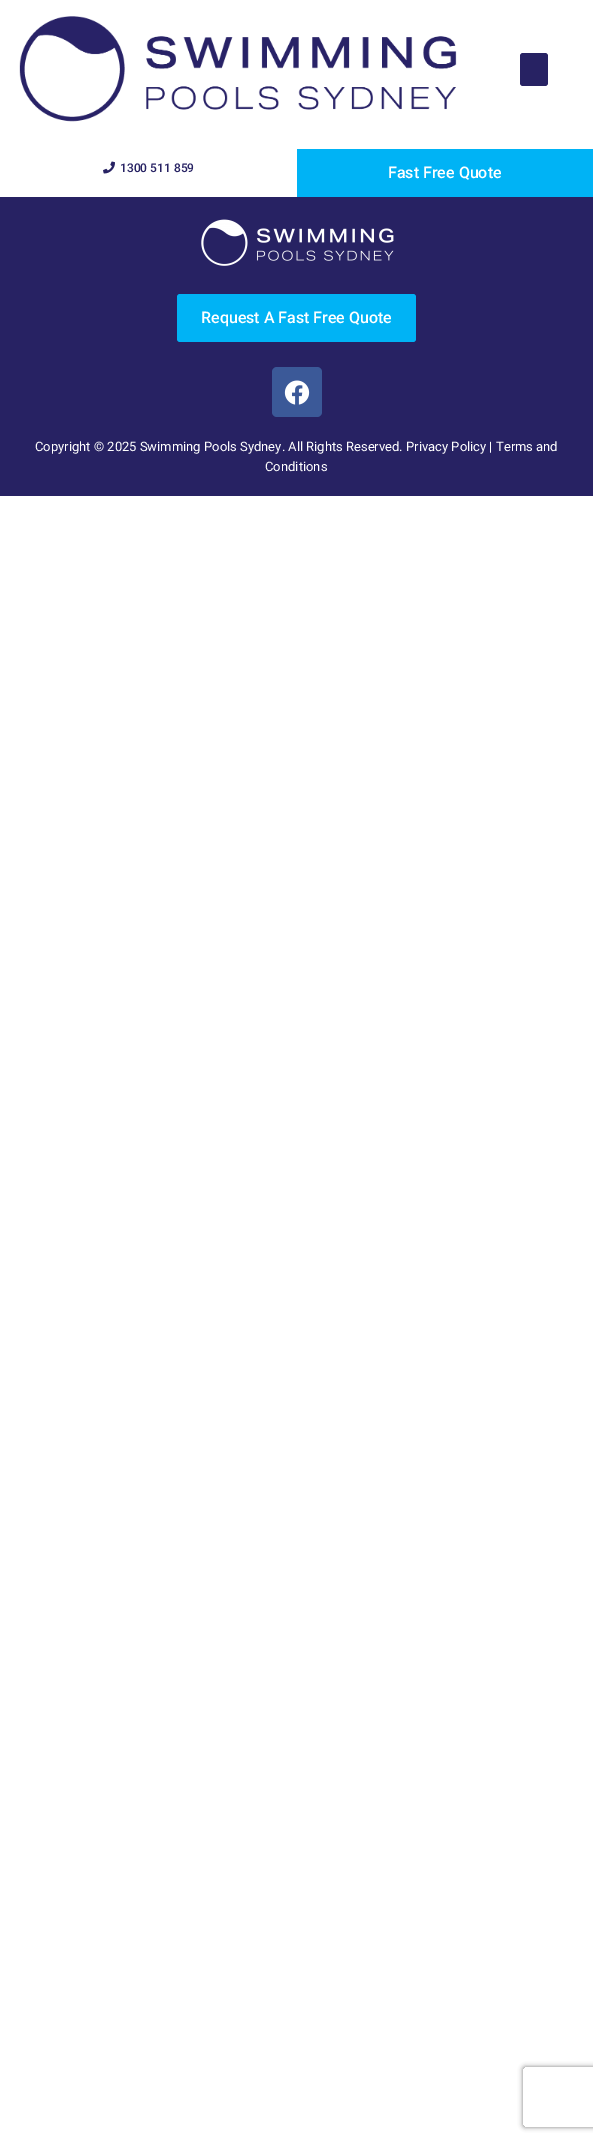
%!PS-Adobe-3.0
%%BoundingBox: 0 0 593 2141
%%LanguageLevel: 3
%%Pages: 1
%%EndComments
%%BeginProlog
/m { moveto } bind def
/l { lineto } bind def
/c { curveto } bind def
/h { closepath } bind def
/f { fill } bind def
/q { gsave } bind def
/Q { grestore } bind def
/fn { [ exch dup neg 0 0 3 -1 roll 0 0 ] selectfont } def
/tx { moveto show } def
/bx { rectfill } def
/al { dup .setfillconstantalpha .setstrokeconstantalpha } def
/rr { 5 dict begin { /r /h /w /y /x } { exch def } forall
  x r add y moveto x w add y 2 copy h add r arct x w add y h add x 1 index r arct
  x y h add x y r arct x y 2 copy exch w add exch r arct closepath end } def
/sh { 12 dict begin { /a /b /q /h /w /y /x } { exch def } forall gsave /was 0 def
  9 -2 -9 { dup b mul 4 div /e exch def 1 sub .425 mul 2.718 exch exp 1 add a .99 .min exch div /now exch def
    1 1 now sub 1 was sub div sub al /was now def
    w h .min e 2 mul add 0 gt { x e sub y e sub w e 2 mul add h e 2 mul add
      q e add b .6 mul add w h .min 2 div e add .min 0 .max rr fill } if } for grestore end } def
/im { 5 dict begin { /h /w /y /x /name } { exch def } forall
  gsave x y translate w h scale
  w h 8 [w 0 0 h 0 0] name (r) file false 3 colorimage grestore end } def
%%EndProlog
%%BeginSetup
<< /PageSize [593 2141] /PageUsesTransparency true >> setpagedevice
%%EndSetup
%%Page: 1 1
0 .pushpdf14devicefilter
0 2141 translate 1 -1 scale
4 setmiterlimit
1 setgray
0 0 593 2141 bx
(image0.raw) 19 16 438 106 im
0.153 0.133 0.388 setrgbcolor
520 53 28 33 3 rr f
(image1.raw) 103 161 12 13 im
/Roboto-Medium 12 fn
(1300 511 859) 120 172 tx
0 0.702 0.961 setrgbcolor
297 149 296 48 bx
/Roboto-Medium 16 fn
1 setgray
(Fast Free Quote) 388 178 tx
0.153 0.133 0.388 setrgbcolor
0 197 593 299 bx
(image2.raw) 201 219 193 47 im
0 0.702 0.961 setrgbcolor
177 294 239 48 3 rr f
1 setgray
(Request A Fast Free Quote) 201 323 tx
0.231 0.349 0.596 setrgbcolor
272 367 50 50 5 rr f
(image3.raw) 284 380 26 25 im
/Roboto-Regular 13 fn
1 setgray
(Copyright © 2025 Swimming Pools Sydney. All Rights Reserved. Privacy Policy | Terms and) 35 451 tx
(Conditions) 265 471 tx
q
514 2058 m 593 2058 l 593 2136 l 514 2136 l h 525 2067 m 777 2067 l 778 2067 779 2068 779 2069 c 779 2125 l 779 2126 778 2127 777 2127 c 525 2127 l 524 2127 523 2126 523 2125 c 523 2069 l 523 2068 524 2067 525 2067 c h eoclip newpath
0.502 setgray
523 2067 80 60 2 2.5 1 sh
Q
.poppdf14devicefilter showpage
%%EOF
